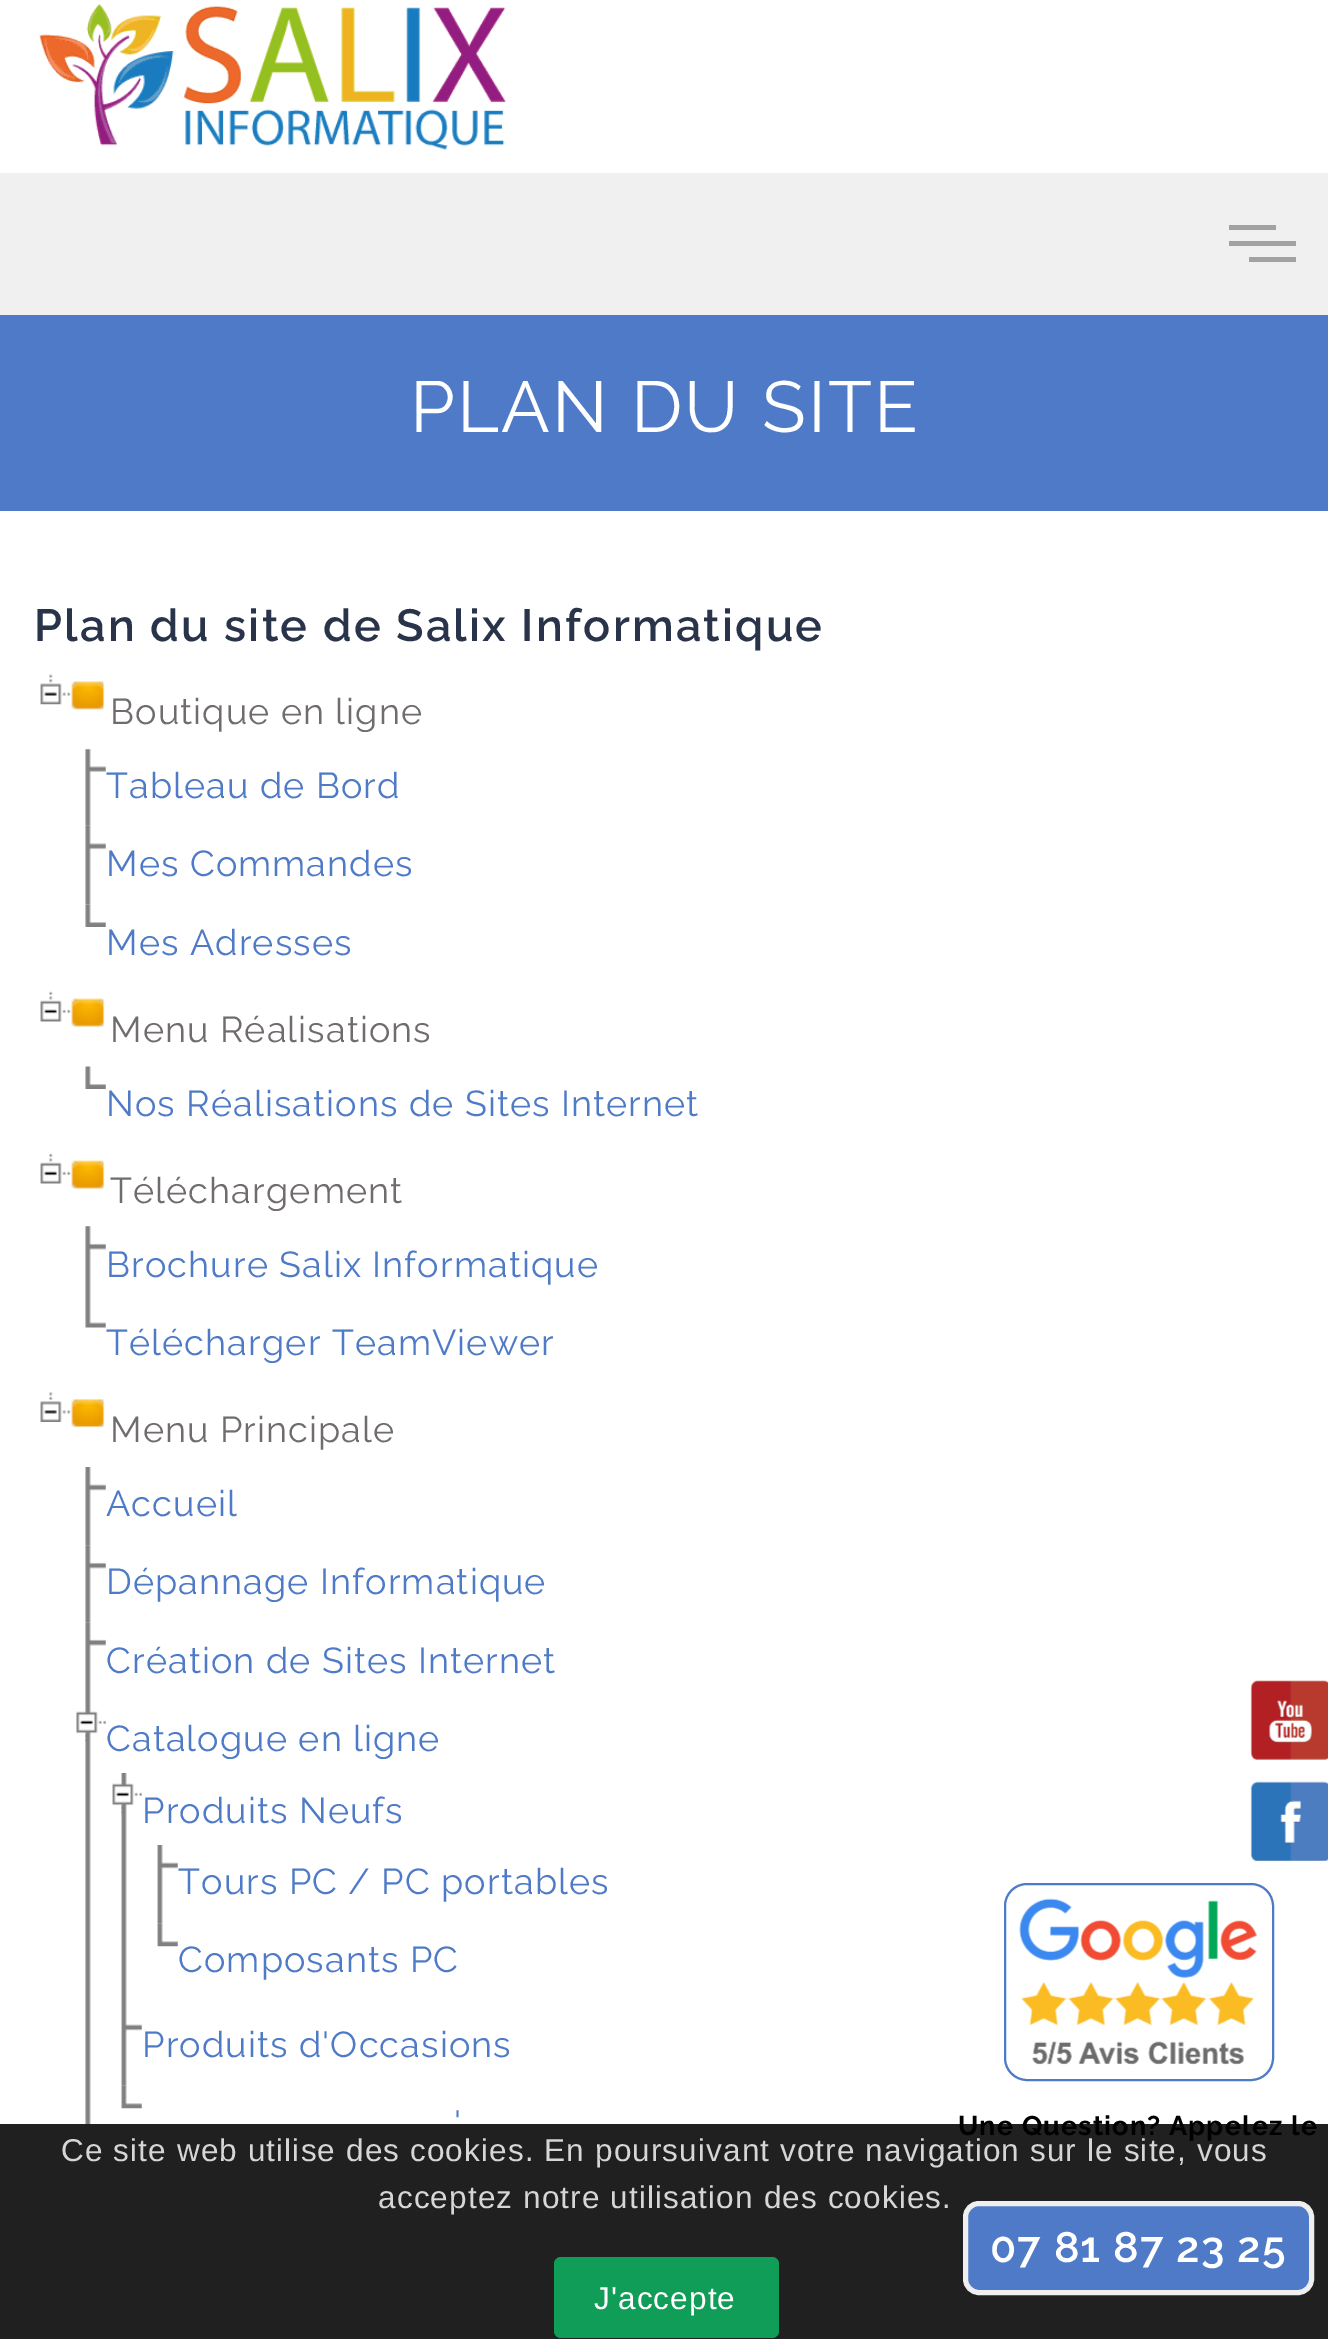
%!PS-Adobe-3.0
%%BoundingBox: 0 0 1328 2339
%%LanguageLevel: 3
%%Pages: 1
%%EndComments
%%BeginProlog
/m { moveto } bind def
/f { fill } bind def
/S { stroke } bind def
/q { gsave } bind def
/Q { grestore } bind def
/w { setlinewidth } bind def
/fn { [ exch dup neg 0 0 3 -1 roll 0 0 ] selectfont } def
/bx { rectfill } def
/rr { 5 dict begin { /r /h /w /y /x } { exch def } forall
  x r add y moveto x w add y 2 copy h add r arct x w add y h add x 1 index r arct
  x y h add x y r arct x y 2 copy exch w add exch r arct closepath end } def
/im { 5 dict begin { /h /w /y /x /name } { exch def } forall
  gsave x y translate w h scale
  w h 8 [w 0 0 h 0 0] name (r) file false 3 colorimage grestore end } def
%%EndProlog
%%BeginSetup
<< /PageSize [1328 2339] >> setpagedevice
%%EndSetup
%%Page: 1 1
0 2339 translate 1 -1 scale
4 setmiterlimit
1 setgray
0 0 1328 2339 bx
(image0.raw) 39 4 467 146 im
0.941 setgray
0 173 1328 142 bx
0.635 setgray
1229 241 67 5 bx
1229 225 47 5 bx
1249 257 47 5 bx
0.306 0.478 0.78 setrgbcolor
0 315 1328 196 bx
/Raleway-Regular 72 fn
1 setgray
410 432 m 2.25 0 (PLAN DU SITE) ashow
/Raleway-SemiBold 45 fn
0.161 0.2 0.29 setrgbcolor
34 641 m 2.25 0 (Plan du site de Salix Informatique) ashow
(image1.raw) 40 674 31 31 im
(image2.raw) 71 681 34 29 im
/Raleway-Regular 36 fn
0.439 0.424 0.424 setrgbcolor
110 724 m 1.12 0 (Boutique en ligne) ashow
(image3.raw) 85 749 21 77 im
0.306 0.478 0.78 setrgbcolor
106 798 m 1.12 0 (Tableau de Bord) ashow
(image4.raw) 85 825 21 80 im
106 876 m 1.12 0 (Mes Commandes) ashow
(image5.raw) 85 904 21 23 im
106 955 m 1.12 0 (Mes Adresses) ashow
(image6.raw) 40 991 31 31 im
(image7.raw) 71 998 34 29 im
0.439 0.424 0.424 setrgbcolor
110 1042 m 1.12 0 (Menu Réalisations) ashow
(image8.raw) 85 1066 21 23 im
0.306 0.478 0.78 setrgbcolor
106 1116 m 1.12 0 (Nos Réalisations de Sites Internet) ashow
(image9.raw) 40 1153 31 31 im
(image10.raw) 71 1160 34 29 im
0.439 0.424 0.424 setrgbcolor
110 1203 m 1.12 0 (Téléchargement) ashow
(image11.raw) 85 1226 21 79 im
0.306 0.478 0.78 setrgbcolor
106 1277 m 1.12 0 (Brochure Salix Informatique) ashow
(image12.raw) 85 1305 21 23 im
106 1355 m 1.12 0 (Télécharger TeamViewer) ashow
(image13.raw) 40 1392 31 30 im
(image14.raw) 71 1399 34 29 im
0.439 0.424 0.424 setrgbcolor
110 1442 m 1.12 0 (Menu Principale) ashow
(image15.raw) 85 1467 21 79 im
0.306 0.478 0.78 setrgbcolor
106 1516 m 1.12 0 (Accueil) ashow
(image16.raw) 85 1545 21 78 im
106 1594 m 1.12 0 (Dépannage Informatique) ashow
(image17.raw) 85 1622 21 79 im
106 1673 m 1.12 0 (Création de Sites Internet) ashow
(image18.raw) 85 1701 6 423 im
(image19.raw) 76 1711 30 31 im
106 1751 m 1.12 0 (Catalogue en ligne) ashow
(image20.raw) 121 1773 6 234 im
(image21.raw) 112 1783 30 31 im
142 1823 m 1.12 0 (Produits Neufs) ashow
(image22.raw) 157 1845 21 79 im
178 1894 m 1.12 0 (Tours PC / PC portables) ashow
(image23.raw) 157 1923 21 24 im
178 1972 m 1.12 0 (Composants PC) ashow
(image22.raw) 121 2007 21 79 im
142 2057 m 1.12 0 (Produits d'Occasions) ashow
(image23.raw) 121 2085 21 24 im
454 2136 m 1.12 0 (') ashow
(image24.raw) 1250 1680 78 80 im
(image25.raw) 1250 1781 78 80 im
2 w
1005 1884 268 196 22 rr S
(image26.raw) 1019 1898 238 167 im
0.125 setgray
0 2124 1328 215 bx
/Raleway-Bold 27 fn
0 setgray
958 2135 m 1.12 0 (Une Question? Appelez le) ashow
0.306 0.478 0.78 setrgbcolor
965.5 2203.5 346 89 13.5 rr q f Q
0.937 setgray
5 w
S
/Raleway-SemiBold 42.75 fn
1 setgray
990 2262 m 1.12 0 (07 81 87 23 25) ashow
/LiberationSans-Regular 31.5 fn
0.839 setgray
61 2161 m 1.12 0 (Ce site web utilise des cookies. En poursuivant votre navigation sur le site, vous) ashow
378 2208 m 1.12 0 (acceptez notre utilisation des cookies.) ashow
0.059 0.616 0.345 setrgbcolor
554 2257 225 81 7 rr f
1 setgray
594 2309 m 1.12 0 (J'accepte) ashow
showpage
%%EOF
